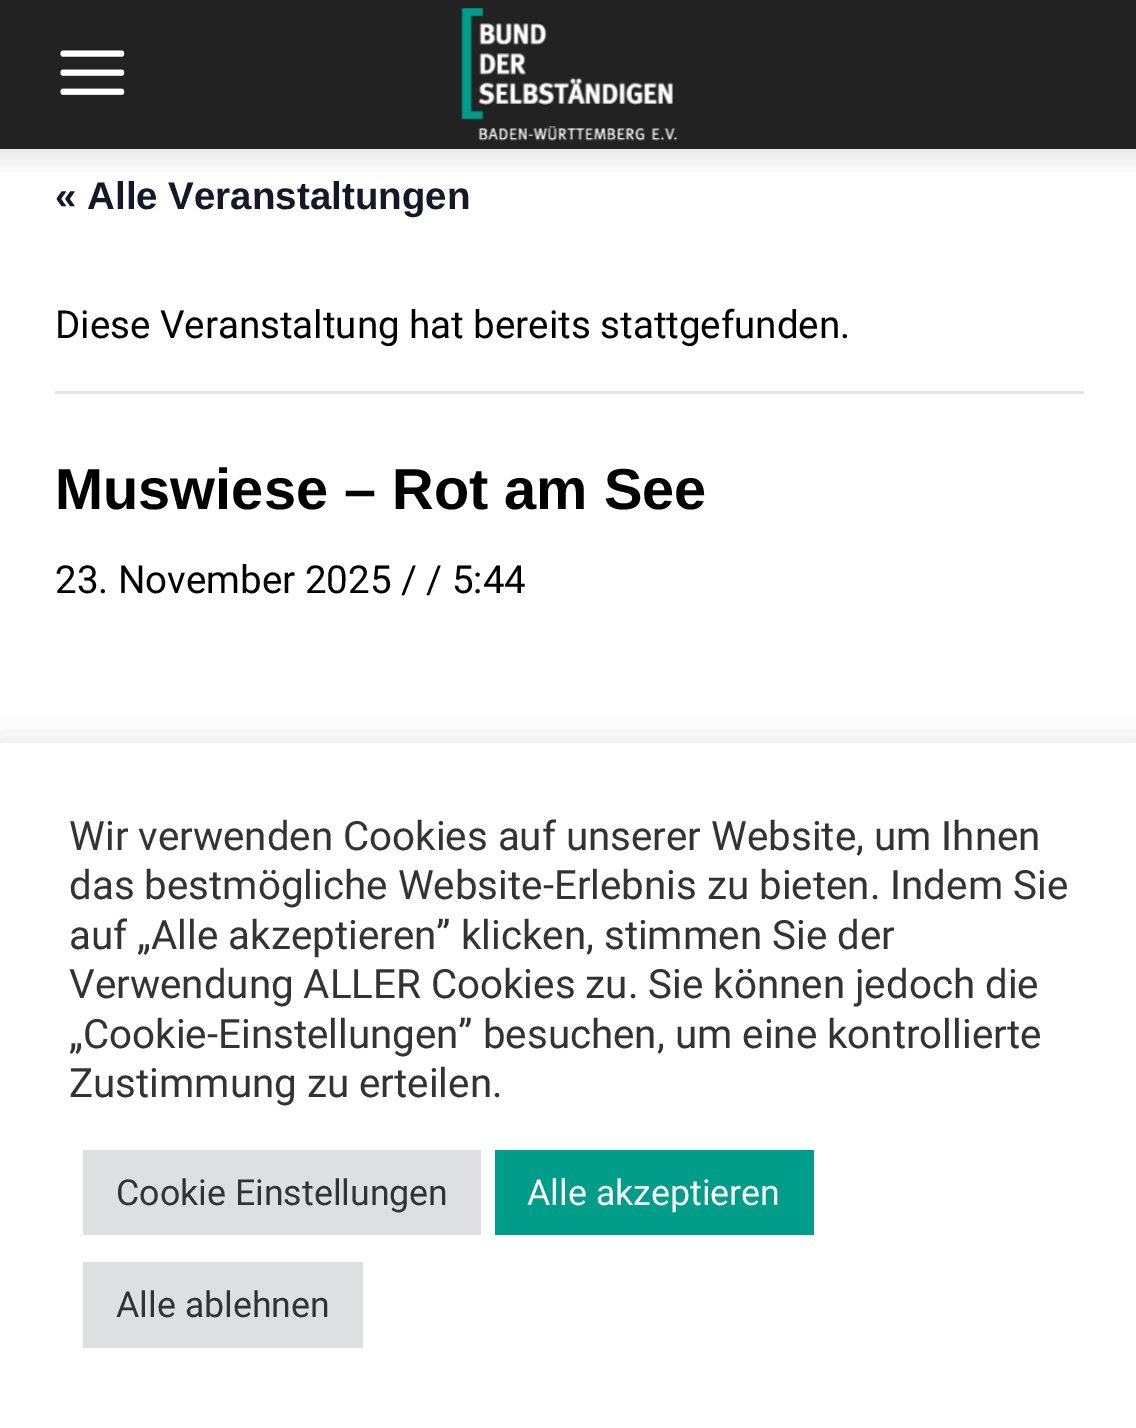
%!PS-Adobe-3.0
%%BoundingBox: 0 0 1136 1428
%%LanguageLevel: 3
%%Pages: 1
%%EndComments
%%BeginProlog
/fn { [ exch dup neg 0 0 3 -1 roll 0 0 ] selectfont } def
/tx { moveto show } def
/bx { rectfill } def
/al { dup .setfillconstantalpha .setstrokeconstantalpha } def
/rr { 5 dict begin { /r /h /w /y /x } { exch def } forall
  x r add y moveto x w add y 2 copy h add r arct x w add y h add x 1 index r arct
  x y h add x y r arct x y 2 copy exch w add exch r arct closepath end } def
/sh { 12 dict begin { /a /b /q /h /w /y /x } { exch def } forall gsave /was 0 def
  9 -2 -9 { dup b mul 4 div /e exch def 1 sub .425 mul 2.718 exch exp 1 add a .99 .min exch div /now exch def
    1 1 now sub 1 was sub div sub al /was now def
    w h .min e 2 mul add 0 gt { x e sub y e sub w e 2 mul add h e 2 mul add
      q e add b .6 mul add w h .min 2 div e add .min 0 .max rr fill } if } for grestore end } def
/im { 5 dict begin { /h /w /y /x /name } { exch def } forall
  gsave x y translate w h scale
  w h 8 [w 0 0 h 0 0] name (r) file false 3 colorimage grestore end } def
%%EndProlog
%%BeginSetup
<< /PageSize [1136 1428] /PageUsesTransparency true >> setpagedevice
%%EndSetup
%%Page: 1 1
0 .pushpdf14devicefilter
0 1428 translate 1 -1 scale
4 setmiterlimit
1 setgray
0 0 1136 1428 bx
0.133 setgray
0 0 1136 149 bx
(image0.raw) 60 50 65 45 im
(image1.raw) 461 8 217 133 im
(image2.raw) 0 149 1136 23 im
/LiberationSans-Bold 38.5 fn
0.078 0.094 0.153 setrgbcolor
(« Alle Veranstaltungen) 55 209 tx
0.894 setgray
55 391 1029 3 bx
/Roboto-Regular 38.5 fn
0 setgray
(Diese Veranstaltung hat bereits stattgefunden.) 55 338 tx
/LiberationSans-Bold 57.75 fn
(Muswiese – Rot am See) 55 509 tx
/Roboto-Regular 38.5 fn
(23. November 2025 / / 5:44) 55 593 tx
0.675 0.671 0.671 setrgbcolor
0 740 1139 687 0 14 0.3 sh
1 setgray
0 743 1136 685 bx
/Roboto-Regular 40.3 fn
0.2 setgray
(Wir verwenden Cookies auf unserer Website, um Ihnen) 69 850 tx
(das bestmögliche Website-Erlebnis zu bieten. Indem Sie) 69 899 tx
(auf „Alle akzeptieren” klicken, stimmen Sie der) 69 949 tx
(Verwendung ALLER Cookies zu. Sie können jedoch die) 69 998 tx
(„Cookie-Einstellungen” besuchen, um eine kontrollierte) 69 1048 tx
(Zustimmung zu erteilen.) 69 1097 tx
0.871 0.875 0.878 setrgbcolor
83 1150 398 85 bx
/Roboto-Regular 35.75 fn
0.2 setgray
(Cookie Einstellungen) 116 1205 tx
0 0.616 0.545 setrgbcolor
495 1150 319 85 bx
1 setgray
(Alle akzeptieren) 527 1205 tx
0.871 0.875 0.878 setrgbcolor
83 1262 280 86 bx
0.2 setgray
(Alle ablehnen) 116 1317 tx
.poppdf14devicefilter showpage
%%EOF
